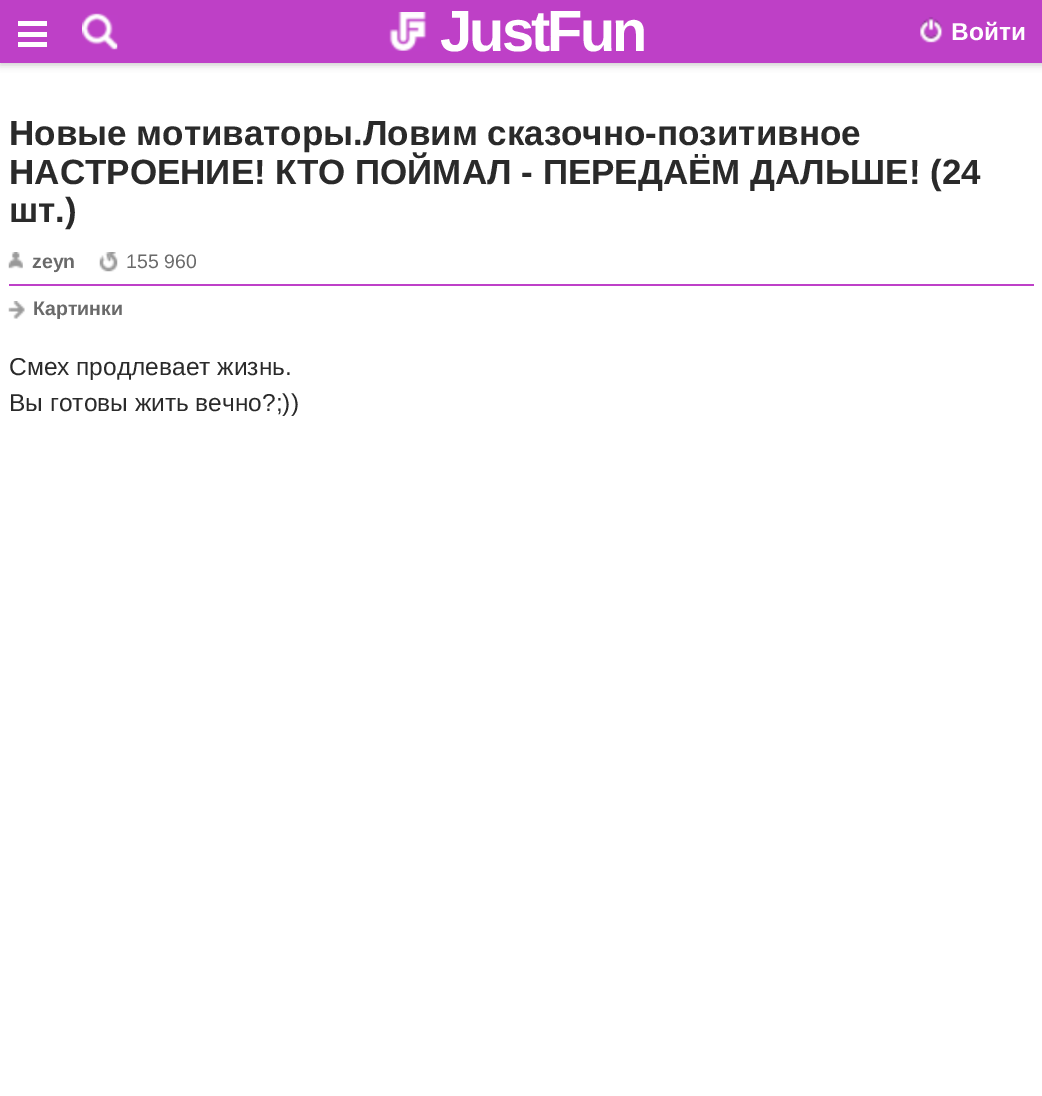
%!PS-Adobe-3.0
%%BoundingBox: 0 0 1042 1096
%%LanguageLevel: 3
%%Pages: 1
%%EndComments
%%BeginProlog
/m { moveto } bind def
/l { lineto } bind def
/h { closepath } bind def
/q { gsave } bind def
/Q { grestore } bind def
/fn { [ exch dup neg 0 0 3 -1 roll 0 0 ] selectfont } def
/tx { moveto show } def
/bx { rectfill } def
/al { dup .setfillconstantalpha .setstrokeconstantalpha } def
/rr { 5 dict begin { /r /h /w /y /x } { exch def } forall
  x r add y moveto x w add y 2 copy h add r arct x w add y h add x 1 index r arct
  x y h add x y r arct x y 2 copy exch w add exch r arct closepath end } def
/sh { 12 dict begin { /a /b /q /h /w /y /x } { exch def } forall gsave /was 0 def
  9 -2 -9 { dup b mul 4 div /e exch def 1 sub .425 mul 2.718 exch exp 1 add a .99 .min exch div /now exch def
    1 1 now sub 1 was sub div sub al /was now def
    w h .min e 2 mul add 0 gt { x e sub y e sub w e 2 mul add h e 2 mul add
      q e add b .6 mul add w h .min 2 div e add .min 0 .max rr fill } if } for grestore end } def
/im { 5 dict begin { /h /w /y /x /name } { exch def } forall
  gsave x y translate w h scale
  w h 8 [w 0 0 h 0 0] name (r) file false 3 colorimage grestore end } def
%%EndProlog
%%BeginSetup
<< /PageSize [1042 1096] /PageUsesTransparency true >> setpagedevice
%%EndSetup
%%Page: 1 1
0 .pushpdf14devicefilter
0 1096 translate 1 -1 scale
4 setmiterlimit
1 setgray
0 0 1042 1096 bx
0 setgray
0 2 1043 63 0 3.5 0.2 sh
q 0 0 m 1042 0 l 1042 61 l 0 61 l h clip newpath
<< /ShadingType 2 /ColorSpace /DeviceRGB /Coords [522 0 522 61] /Extend [true true] /Function << /FunctionType 2 /Domain [0 1] /C0 [0.745 0.251 0.776] /C1 [0.745 0.251 0.784] /N 1 >> >> shfill Q
0.745 0.251 0.784 setrgbcolor
0 61 1042 2 bx
1 setgray
18 32 29 5 bx
18 21 29 5 bx
18 42 29 5 bx
(image0.raw) 82 13 36 37 im
(image1.raw) 389 12 38 39 im
/LiberationSans-Bold 58 fn
440 51 m -3 0 (JustFun) ashow
(image2.raw) 920 17 23 26 im
/LiberationSans-Bold 24.5 fn
(Войти) 951 40 tx
/LiberationSans-Bold 35 fn
0.165 setgray
(Новые мотиваторы.Ловим сказочно-позитивное) 9 145 tx
(НАСТРОЕНИЕ! КТО ПОЙМАЛ - ПЕРЕДАЁМ ДАЛЬШЕ! \(24) 9 184 tx
(шт.\)) 9 222 tx
(image3.raw) 8 252 15 17 im
/LiberationSans-Bold 19.5 fn
0.416 setgray
(zeyn) 32 268 tx
(image4.raw) 99 252 19 20 im
/LiberationSans-Regular 19.5 fn
(155 960) 126 268 tx
0.745 0.251 0.784 setrgbcolor
9 284 1025 2 bx
(image5.raw) 8 301 17 18 im
/LiberationSans-Bold 19.5 fn
0.416 setgray
(Картинки) 33 315 tx
/LiberationSans-Regular 24.5 fn
0.165 setgray
(Смех продлевает жизнь.) 9 375 tx
(Вы готовы жить вечно?;\)\)) 9 411 tx
.poppdf14devicefilter showpage
%%EOF
